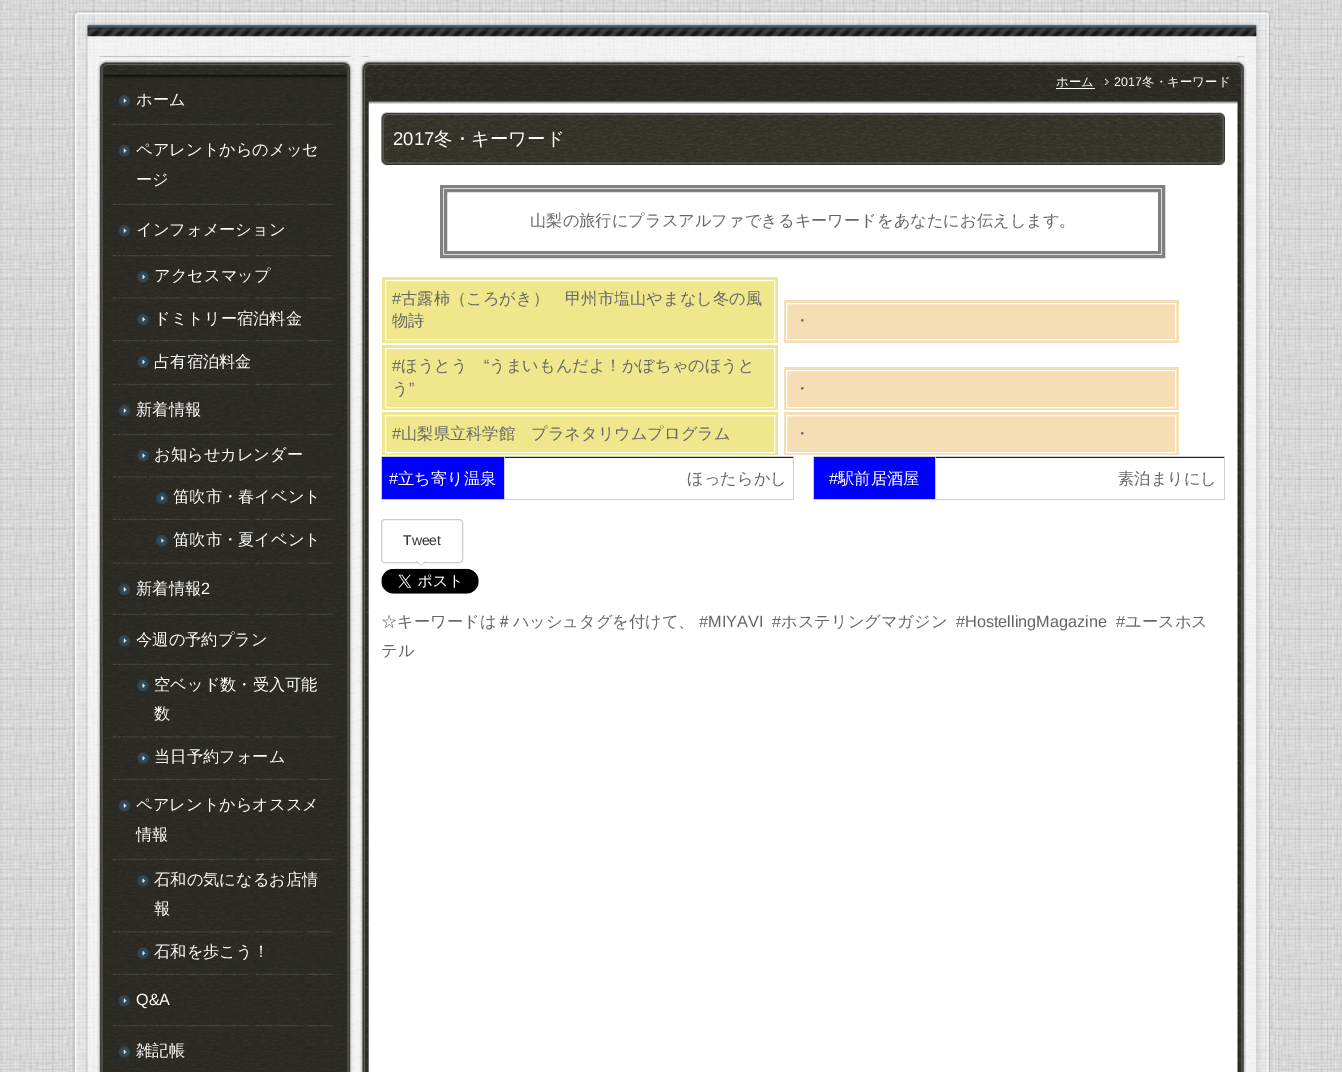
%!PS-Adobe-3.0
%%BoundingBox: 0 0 1342 1072
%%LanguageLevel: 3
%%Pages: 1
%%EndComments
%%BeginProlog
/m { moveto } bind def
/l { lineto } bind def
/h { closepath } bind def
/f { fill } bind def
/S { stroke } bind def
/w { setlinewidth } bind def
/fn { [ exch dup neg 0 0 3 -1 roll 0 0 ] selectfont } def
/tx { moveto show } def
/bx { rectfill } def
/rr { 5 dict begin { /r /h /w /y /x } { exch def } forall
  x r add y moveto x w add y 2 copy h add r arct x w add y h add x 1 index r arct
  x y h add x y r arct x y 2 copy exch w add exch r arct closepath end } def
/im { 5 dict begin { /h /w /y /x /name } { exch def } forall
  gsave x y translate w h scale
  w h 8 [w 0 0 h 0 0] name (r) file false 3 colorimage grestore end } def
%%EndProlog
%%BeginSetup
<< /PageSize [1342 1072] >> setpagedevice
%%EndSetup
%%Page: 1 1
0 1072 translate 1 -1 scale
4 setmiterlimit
1 setgray
0 0 1342 1072 bx
(image0.raw) 0 0 1342 1072 im
(image1.raw) 69 36 1206 1036 im
(image2.raw) 68 0 1207 37 im
(image3.raw) 94 56 262 1016 im
(image4.raw) 94 56 261 25 im
(image5.raw) 112 123 224 2 im
(image6.raw) 118 95 12 12 im
/WenQuanYiZenHei-Medium 16.25 fn
(ホーム) 136 105 tx
(image7.raw) 112 203 224 2 im
(image8.raw) 118 145 12 12 im
(ペアレントからのメッセ) 136 155 tx
(ージ) 136 185 tx
(image9.raw) 112 383 224 2 im
(image10.raw) 118 225 12 12 im
(インフォメーション) 136 235 tx
(image11.raw) 112 255 224 2 im
(image12.raw) 137 271 12 12 im
(アクセスマップ) 154 281 tx
(image13.raw) 112 297 224 2 im
(image14.raw) 137 313 12 12 im
(ドミトリー宿泊料金) 154 324 tx
(image15.raw) 112 340 224 2 im
(image16.raw) 137 356 12 12 im
(占有宿泊料金) 154 367 tx
(image17.raw) 112 562 224 2 im
(image18.raw) 118 405 12 12 im
(新着情報) 136 415 tx
(image19.raw) 112 433 224 2 im
(image20.raw) 137 450 12 12 im
(お知らせカレンダー) 154 460 tx
(image21.raw) 112 476 224 2 im
(image22.raw) 156 492 12 12 im
(笛吹市・春イベント) 173 502 tx
(image23.raw) 112 518 224 2 im
(image24.raw) 156 535 12 12 im
(笛吹市・夏イベント) 173 545 tx
(image25.raw) 112 613 224 2 im
(image26.raw) 118 583 12 12 im
(新着情報) 136 594 tx
/LiberationSans-Regular 16.25 fn
(2) 201 594 tx
(image27.raw) 112 778 224 2 im
(image28.raw) 118 635 12 12 im
/WenQuanYiZenHei-Medium 16.25 fn
(今週の予約プラン) 136 645 tx
(image29.raw) 112 663 224 2 im
(image30.raw) 137 680 12 12 im
(空ベッド数・受入可能) 154 690 tx
(数) 154 719 tx
(image31.raw) 112 736 224 2 im
(image32.raw) 137 752 12 12 im
(当日予約フォーム) 154 762 tx
(image33.raw) 112 973 224 2 im
(image34.raw) 118 800 12 12 im
(ペアレントからオススメ) 136 810 tx
(情報) 136 840 tx
(image35.raw) 112 858 224 2 im
(image36.raw) 137 875 12 12 im
(石和の気になるお店情) 154 885 tx
(報) 154 914 tx
(image37.raw) 112 931 224 2 im
(image38.raw) 137 947 12 12 im
(石和を歩こう！) 154 957 tx
(image39.raw) 112 1025 224 2 im
(image40.raw) 118 995 12 12 im
/LiberationSans-Regular 16.25 fn
(Q&A) 136 1005 tx
(image41.raw) 118 1046 12 12 im
/WenQuanYiZenHei-Medium 16.25 fn
(雑記帳) 136 1056 tx
(image42.raw) 356 56 894 1016 im
(image43.raw) 356 56 894 50 im
/WenQuanYiZenHei-Medium 12.5 fn
(ホーム) 1056 86 tx
1056 88 39 1 bx
(image44.raw) 1105 78 4 7 im
/LiberationSans-Regular 12.5 fn
(2017) 1114 86 tx
/WenQuanYiZenHei-Medium 12.5 fn
(冬・キーワード) 1142 86 tx
(image45.raw) 381 112 844 53 im
/LiberationSans-Regular 18.5 fn
(2017) 393 145 tx
/WenQuanYiZenHei-Medium 18.5 fn
(冬・キーワード) 434 145 tx
0.502 setgray
3 w
441.5 186.5 722 70 rectstroke
445.5 190.5 714 62 rectstroke
/WenQuanYiZenHei-Medium 16.25 fn
0.4 setgray
(山梨の旅行にプラスアルファできるキーワードをあなたにお伝えします。) 530 226 tx
0.941 0.902 0.549 setrgbcolor
382 277 396 66 bx
1 setgray
1 w
385.5 280.5 389 59 rectstroke
/LiberationSans-Regular 16.25 fn
0.4 setgray
(#) 392 304 tx
/WenQuanYiZenHei-Medium 16.25 fn
(古露柿（ころがき）　甲州市塩山やまなし冬の風) 401 304 tx
(物詩) 392 326 tx
0.961 0.871 0.702 setrgbcolor
784 300 395 43 bx
1 setgray
786.5 303.5 389 36 rectstroke
0.4 setgray
(・) 794 326 tx
0.941 0.902 0.549 setrgbcolor
382 345 396 65 bx
1 setgray
385.5 348.5 389 59 rectstroke
/LiberationSans-Regular 16.25 fn
0.4 setgray
(#) 392 371 tx
/WenQuanYiZenHei-Medium 16.25 fn
(ほうとう) 401 371 tx
/LiberationSans-Regular 16.25 fn
(“) 484 371 tx
/WenQuanYiZenHei-Medium 16.25 fn
(うまいもんだよ！かぼちゃのほうと) 489 371 tx
(う) 392 394 tx
/LiberationSans-Regular 16.25 fn
(”) 409 394 tx
0.961 0.871 0.702 setrgbcolor
784 367 395 43 bx
1 setgray
786.5 370.5 389 37 rectstroke
/WenQuanYiZenHei-Medium 16.25 fn
0.4 setgray
(・) 794 394 tx
0.941 0.902 0.549 setrgbcolor
382 412 396 43 bx
1 setgray
385.5 415.5 389 37 rectstroke
/LiberationSans-Regular 16.25 fn
0.4 setgray
(#) 392 439 tx
/WenQuanYiZenHei-Medium 16.25 fn
(山梨県立科学館　プラネタリウムプログラム) 401 439 tx
0.961 0.871 0.702 setrgbcolor
784 412 395 43 bx
1 setgray
786.5 415.5 389 37 rectstroke
0.4 setgray
(・) 794 439 tx
0 0 1 setrgbcolor
382 457 411 42 bx
0.804 0.816 0.831 setrgbcolor
381 456 413 1 bx
381 456 1 44 bx
793 456 1 44 bx
504 499 290 1 bx
504 456 1 44 bx
381 499 124 1 bx
/LiberationSans-Regular 16.25 fn
1 setgray
(#) 389 484 tx
/WenQuanYiZenHei-Medium 16.25 fn
(立ち寄り温泉) 398 484 tx
505 458 288 41 bx
0.4 setgray
(ほったらかし) 687 484 tx
0 0 1 setrgbcolor
814 457 410 42 bx
0.804 0.816 0.831 setrgbcolor
813 456 412 1 bx
813 456 1 44 bx
1224 456 1 44 bx
935 499 290 1 bx
935 456 1 44 bx
813 499 123 1 bx
/LiberationSans-Regular 16.25 fn
1 setgray
(#) 829 484 tx
/WenQuanYiZenHei-Medium 16.25 fn
(駅前居酒屋) 838 484 tx
936 458 288 41 bx
0.4 setgray
(素泊まりにし) 1118 484 tx
0.8 setgray
381.5 519.5 81 43 3.5 rr S
/LiberationSans-Regular 14 fn
0.2 setgray
(Tweet) 403 545 tx
0.8 setgray
416 561 m 426 561 l 421 566 l h f
1 setgray
417.5 561 m 425 561 l 421 565 l h f
(image46.raw) 381 568 98 26 im
/WenQuanYiZenHei-Medium 16.25 fn
0.4 setgray
(☆キーワードは＃ハッシュタグを付けて、) 381 627 tx
/LiberationSans-Regular 16.25 fn
(#MIYAVI  #) 699 627 tx
/WenQuanYiZenHei-Medium 16.25 fn
(ホステリングマガジン) 781 627 tx
/LiberationSans-Regular 16.25 fn
(#HostellingMagazine  #) 956 627 tx
/WenQuanYiZenHei-Medium 16.25 fn
(ユースホス) 1125 627 tx
(テル) 381 656 tx
showpage
%%EOF
